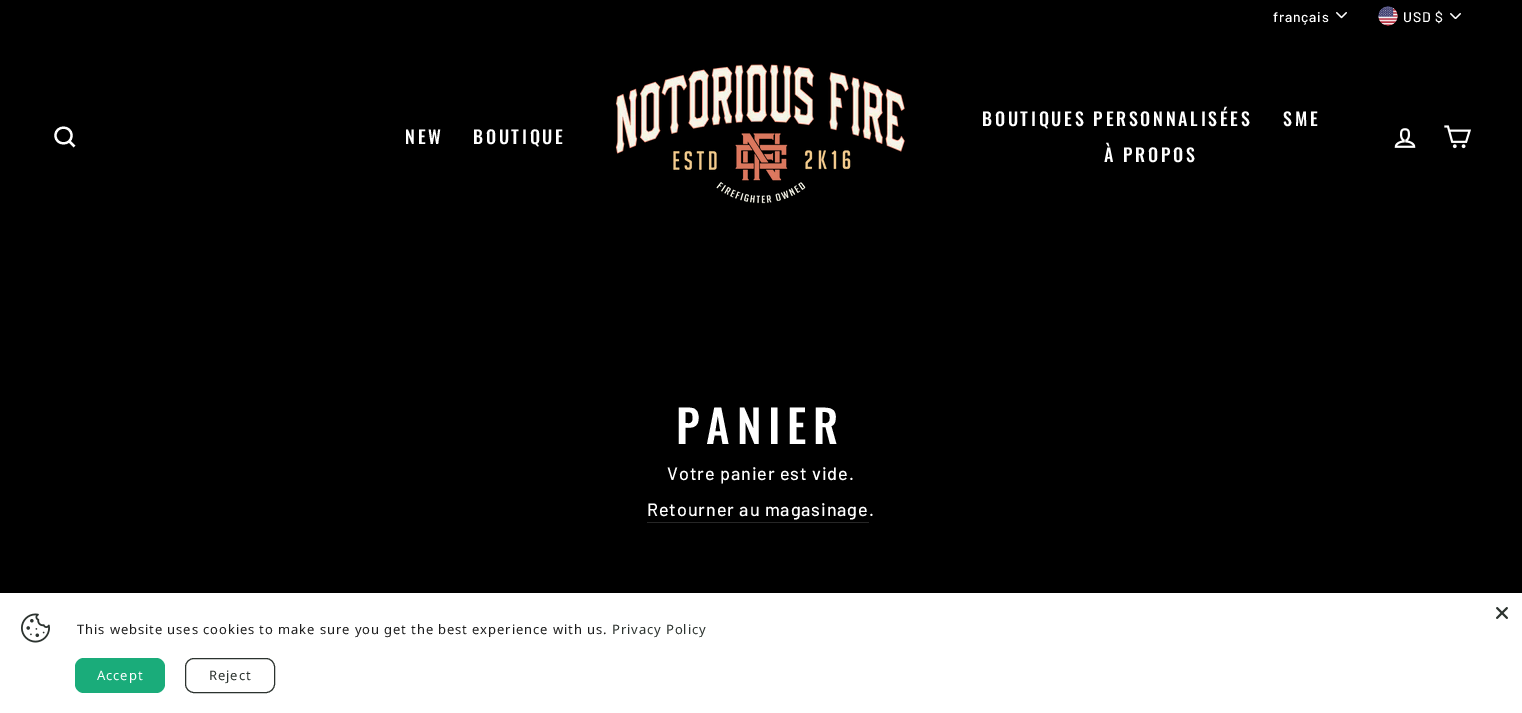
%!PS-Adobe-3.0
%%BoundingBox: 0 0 1522 713
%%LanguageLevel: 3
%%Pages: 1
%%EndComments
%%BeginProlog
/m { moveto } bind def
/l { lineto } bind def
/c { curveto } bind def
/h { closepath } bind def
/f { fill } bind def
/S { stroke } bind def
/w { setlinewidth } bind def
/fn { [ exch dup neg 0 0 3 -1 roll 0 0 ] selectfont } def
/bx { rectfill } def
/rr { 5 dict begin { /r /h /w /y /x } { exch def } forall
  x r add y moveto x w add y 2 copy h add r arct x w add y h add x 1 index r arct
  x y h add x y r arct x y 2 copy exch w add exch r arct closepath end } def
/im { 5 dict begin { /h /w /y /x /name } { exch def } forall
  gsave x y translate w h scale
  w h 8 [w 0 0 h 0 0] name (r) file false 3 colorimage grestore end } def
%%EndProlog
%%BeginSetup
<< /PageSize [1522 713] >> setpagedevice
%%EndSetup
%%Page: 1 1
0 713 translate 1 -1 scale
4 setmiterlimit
0 setgray
0 0 1522 713 bx
(image0.raw) 1336 12 11 7 im
/Barlow-Medium 14 fn
1 setgray
1273 22 m 0.75 0 (français) ashow
(image1.raw) 1450 13 11 6 im
(image2.raw) 1378 6 20 20 im
1403 22 m 0.75 0 (USD $) ashow
2.2 w
71.5 135.5 m 71.5 146 55.5 146 55.5 135.5 c 55.5 125 71.5 125 71.5 135.5 c h 74.5 146.5 m 69.5 141.5 l S
/Oswald-Medium 18 fn
405 144 m 2.7 0 (NEW) ashow
473 144 m 2.7 0 (BOUTIQUE) ashow
(image3.raw) 615 64 290 140 im
982 126 m 2.7 0 (BOUTIQUES PERSONNALISÉES) ashow
1283 126 m 2.7 0 (SME) ashow
1104 162 m 2.7 0 (À PROPOS) ashow
(image4.raw) 1394 128 22 20 im
(image5.raw) 1444 125 27 24 im
/Oswald-Medium 45 fn
676 444 m 6.75 0 (PANIER) ashow
/Barlow-Medium 18 fn
667 480 m 0.9 0 (Votre panier est vide.) ashow
0.149 setgray
647 522 222 1 bx
1 setgray
647 516 m 0.9 0 (Retourner au magasinage) ashow
869 516 m 0.9 0 (.) ashow
0 593 1522 120 bx
(image6.raw) 1496 607 12 12 im
(image7.raw) 21 613 29 30 im
/NotoSans-Regular 13 fn
0.114 setgray
77 634 m 0.9 0 (This website uses cookies to make sure you get the best experience with us.) ashow
0.173 0.2 0.184 setrgbcolor
612 634 m 0.9 0 (Privacy Policy) ashow
0.102 0.675 0.478 setrgbcolor
75 658 90 35 9 rr f
1 setgray
97 680 m 0.9 0 (Accept) ashow
0.173 0.2 0.184 setrgbcolor
1 w
185.5 658.5 89 34 8.5 rr S
209 680 m 0.9 0 (Reject) ashow
showpage
%%EOF
